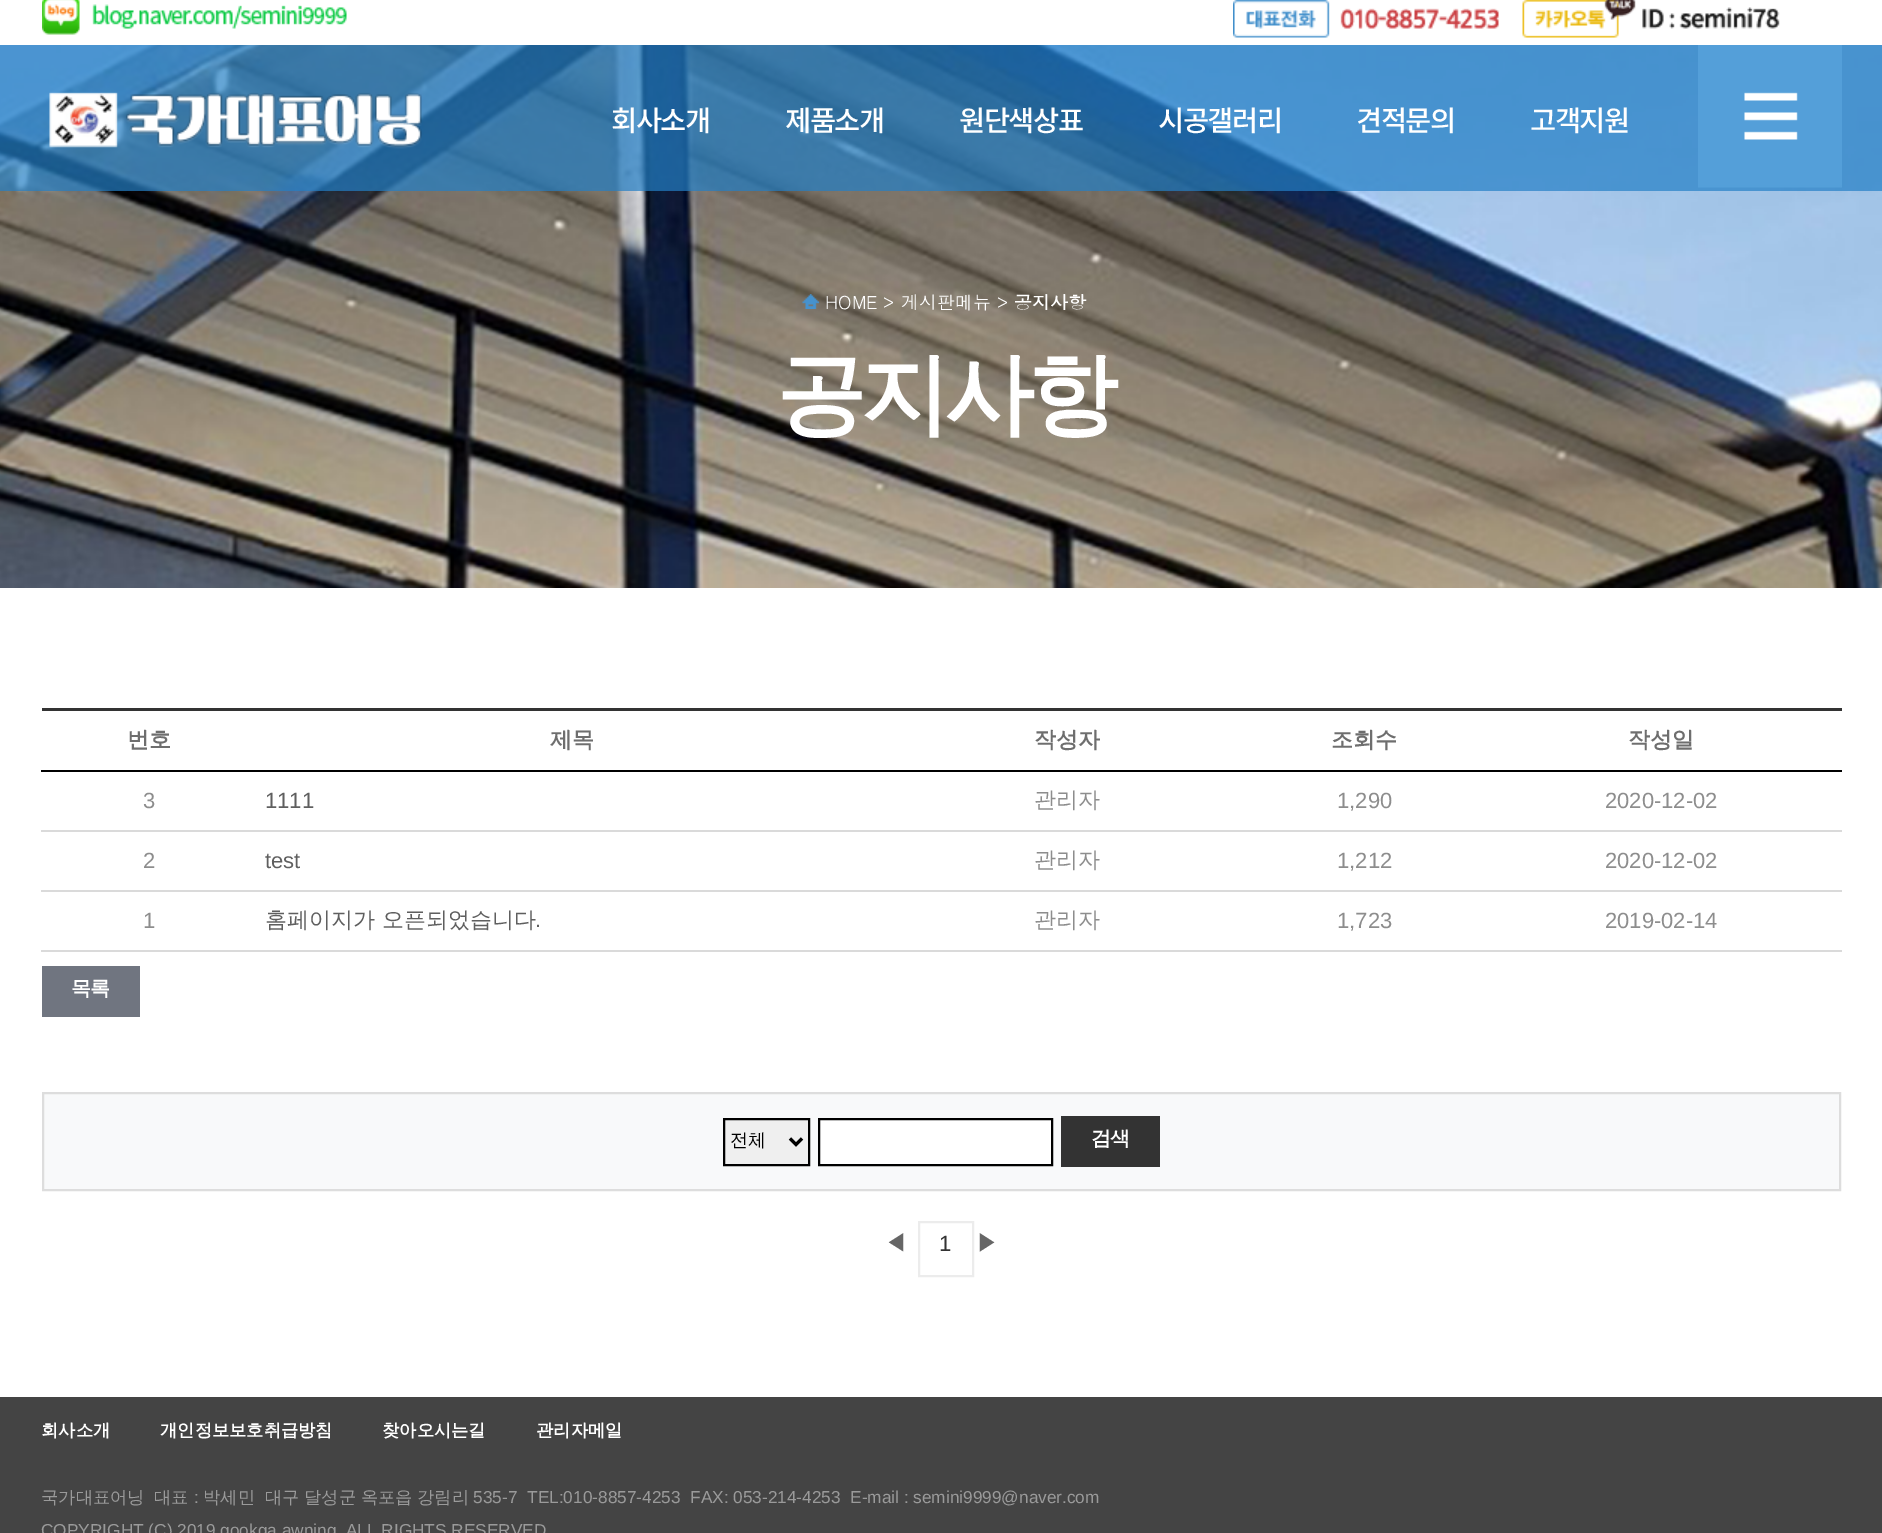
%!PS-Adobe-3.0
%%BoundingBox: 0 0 1882 1533
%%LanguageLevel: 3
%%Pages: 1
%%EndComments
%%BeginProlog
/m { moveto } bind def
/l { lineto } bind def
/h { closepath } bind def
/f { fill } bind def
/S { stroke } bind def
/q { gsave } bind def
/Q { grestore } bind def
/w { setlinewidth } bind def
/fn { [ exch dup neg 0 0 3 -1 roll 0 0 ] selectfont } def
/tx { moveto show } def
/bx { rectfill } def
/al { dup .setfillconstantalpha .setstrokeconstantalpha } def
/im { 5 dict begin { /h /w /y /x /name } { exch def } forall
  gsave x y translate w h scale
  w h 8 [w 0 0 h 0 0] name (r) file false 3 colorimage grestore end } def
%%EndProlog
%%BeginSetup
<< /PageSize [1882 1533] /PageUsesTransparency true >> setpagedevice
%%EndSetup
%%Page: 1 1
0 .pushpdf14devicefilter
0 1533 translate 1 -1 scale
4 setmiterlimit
1 setgray
0 0 1882 1533 bx
(image5.raw) 0 45 1882 543 im
0.7 al
0.137 0.498 0.776 setrgbcolor
0 45 1882 146 bx
1 al
(image0.raw) 42 0 305 35 im
(image1.raw) 1233 0 266 38 im
(image2.raw) 1522 0 258 38 im
(image3.raw) 49 92 373 57 im
/NotoSansKR-Medium 28.5 fn
1 setgray
611 131 m -1.5 0 (회사소개) ashow
785 131 m -1.5 0 (제품소개) ashow
959 131 m -1.5 0 (원단색상표) ashow
1158 131 m -1.5 0 (시공갤러리) ashow
1356 131 m -1.5 0 (견적문의) ashow
1530 131 m -1.5 0 (고객지원) ashow
(image4.raw) 1698 45 144 143 im
(image6.raw) 802 294 17 15 im
/Dotum-Regular 18 fn
(HOME > 게시판메뉴 >) 825 309 tx
/Dotum-Bold 18 fn
(공지사항) 1014 309 tx
/WenQuanYiZenHei-Bold 90 fn
776 425 m -6 0 (공지사항) ashow
0.2 setgray
42 708 1800 3 bx
/WenQuanYiZenHei-Bold 22 fn
0.431 setgray
(번호) 127 747 tx
(제목) 550 747 tx
(작성자) 1034 747 tx
(조회수) 1331 747 tx
0 setgray
41 770 1801 2 bx
0.431 setgray
(작성일) 1628 747 tx
/LiberationSans-Regular 22 fn
0.553 setgray
(3) 143 808 tx
0.373 setgray
(1111) 265 808 tx
/WenQuanYiZenHei-Medium 22 fn
0.553 setgray
(관리자) 1034 807 tx
/LiberationSans-Regular 22 fn
(1,290) 1337 808 tx
0.855 setgray
41 830 1801 2 bx
0.553 setgray
(2020-12-02) 1605 808 tx
(2) 143 868 tx
0.373 setgray
(test) 265 868 tx
/WenQuanYiZenHei-Medium 22 fn
0.553 setgray
(관리자) 1034 867 tx
/LiberationSans-Regular 22 fn
(1,212) 1337 868 tx
0.855 setgray
41 890 1801 2 bx
0.553 setgray
(2020-12-02) 1605 868 tx
(1) 143 928 tx
/WenQuanYiZenHei-Medium 22 fn
0.373 setgray
(홈페이지가 오픈되었습니다) 265 927 tx
/LiberationSans-Regular 22 fn
(.) 535 927 tx
/WenQuanYiZenHei-Medium 22 fn
0.553 setgray
(관리자) 1034 927 tx
/LiberationSans-Regular 22 fn
(1,723) 1337 928 tx
0.855 setgray
41 950 1801 2 bx
0.553 setgray
(2019-02-14) 1605 928 tx
0.439 0.459 0.502 setrgbcolor
42 966 98 51 bx
/WenQuanYiZenHei-Bold 20 fn
1 setgray
71 995 m -1 0 (목록) ashow
0.973 0.976 0.98 setrgbcolor
43 1093 m 1840 1093 l 1840 1190 l 43 1190 l h q f Q
0.867 setgray
2 w
S
0.937 setgray
724 1119 m 809 1119 l 809 1165 l 724 1165 l h q f Q
0 setgray
S
3 w
790 1138.5 m 796 1144.5 l 802 1138.5 l S
/WenQuanYiZenHei-Medium 18 fn
(전체) 730 1146 tx
1 setgray
819 1119 m 1052 1119 l 1052 1165 l 819 1165 l h q f Q
0 setgray
2 w
S
0.2 setgray
1061 1116 99 51 bx
/WenQuanYiZenHei-Bold 20 fn
1 setgray
1091 1145 m -1 0 (검색) ashow
/Dotum-Regular 24 fn
0.4 setgray
(◀) 884 1251 tx
0.925 setgray
919 1222 54 54 rectstroke
/LiberationSans-Regular 22 fn
0.2 setgray
(1) 939 1251 tx
/Dotum-Regular 24 fn
0.4 setgray
(▶) 975 1251 tx
0.267 setgray
0 1397 1882 136 bx
/WenQuanYiZenHei-Bold 17.25 fn
1 setgray
(회사소개) 41 1436 tx
(개인정보보호취급방침) 160 1436 tx
(찾아오시는길) 382 1436 tx
(관리자메일) 536 1436 tx
/WenQuanYiZenHei-Medium 17.25 fn
0.604 setgray
(국가대표어닝) 41 1503 tx
(대표) 154 1503 tx
/LiberationSans-Regular 17.25 fn
(:) 194 1503 tx
/WenQuanYiZenHei-Medium 17.25 fn
(박세민) 203 1503 tx
265 1503 m -0.5 0 32 (대구 달성군 옥포읍 강림리) widthshow
/LiberationSans-Regular 17.25 fn
(535-7) 473 1503 tx
(TEL:010-8857-4253) 527 1503 tx
(FAX: 053-214-4253) 690 1503 tx
(E-mail : semini9999@naver.com) 850 1503 tx
(COPYRIGHT \(C\) 2019 gookga awning. ALL RIGHTS RESERVED) 41 1536 tx
.poppdf14devicefilter showpage
%%EOF
